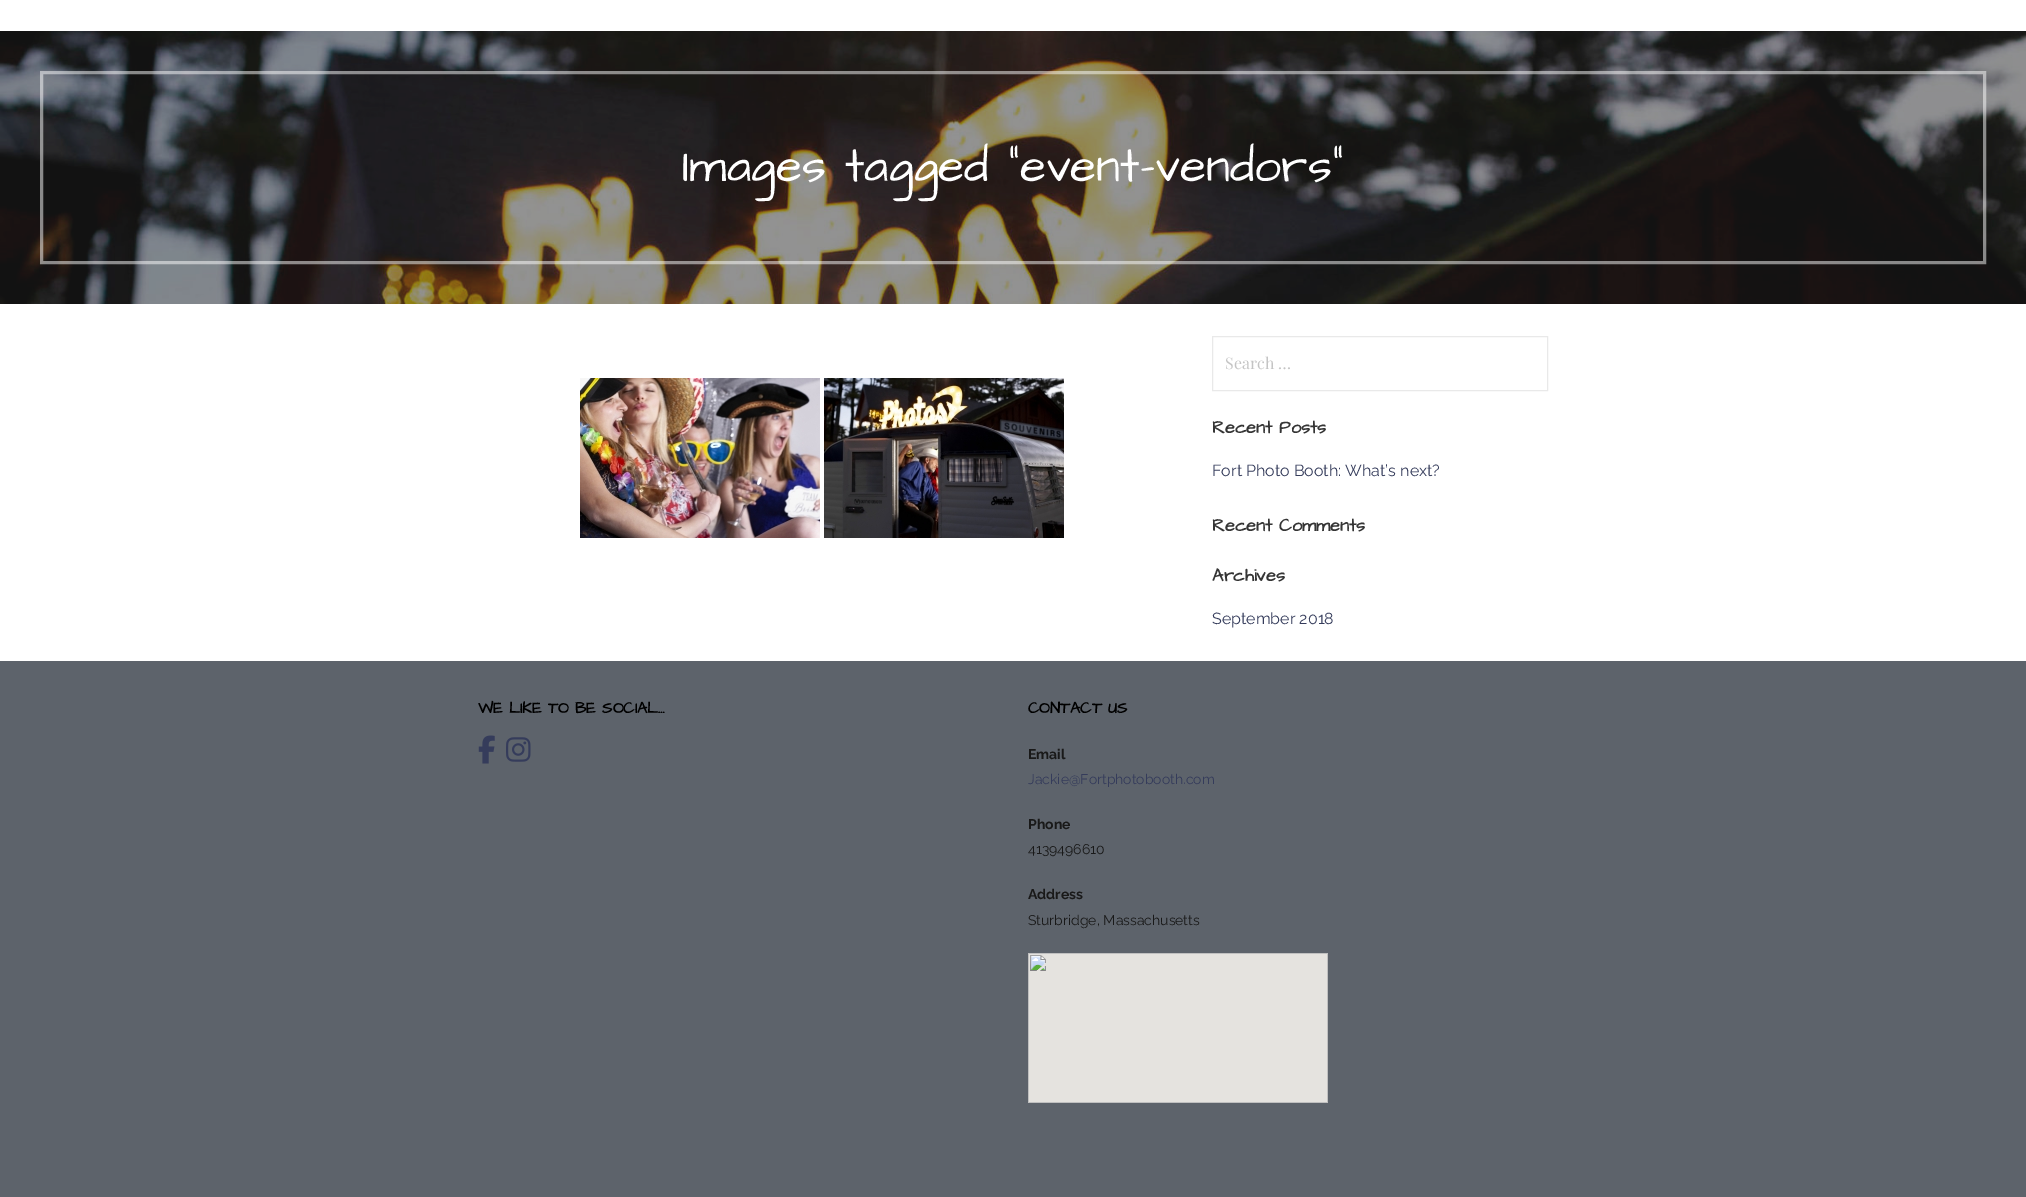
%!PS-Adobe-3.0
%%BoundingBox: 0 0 2026 1197
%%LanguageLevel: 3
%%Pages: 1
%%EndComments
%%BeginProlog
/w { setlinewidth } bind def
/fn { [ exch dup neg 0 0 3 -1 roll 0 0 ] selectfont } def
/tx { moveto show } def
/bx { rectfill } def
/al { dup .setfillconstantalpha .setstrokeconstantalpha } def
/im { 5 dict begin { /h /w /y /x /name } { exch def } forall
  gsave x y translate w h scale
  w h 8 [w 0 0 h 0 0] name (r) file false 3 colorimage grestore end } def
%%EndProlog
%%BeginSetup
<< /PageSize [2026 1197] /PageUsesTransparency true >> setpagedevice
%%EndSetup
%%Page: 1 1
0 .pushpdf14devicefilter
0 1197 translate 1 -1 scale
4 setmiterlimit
1 setgray
0 0 2026 1197 bx
(image0.raw) 0 31 2026 273 im
0.5 al
3 w
41.5 72.5 1943 190 rectstroke
/ArchitectsDaughter-Regular 48 fn
1 al
(Images tagged "event-vendors") 682 181 tx
(image1.raw) 580 378 240 160 im
(image2.raw) 824 378 240 160 im
0.914 setgray
1 w
1212.5 336.5 335 54 rectstroke
/PlayfairDisplay-Regular 16 fn
0.769 setgray
(Search …) 1225 369 tx
/ArchitectsDaughter-Bold 18 fn
0.208 setgray
(Recent Posts) 1212 433 tx
/Raleway-Regular 16 fn
0.208 0.235 0.357 setrgbcolor
(Fort Photo Booth: What’s next?) 1212 476 tx
/ArchitectsDaughter-Bold 18 fn
0.208 setgray
(Recent Comments) 1212 531 tx
(Archives) 1212 581 tx
/Raleway-Regular 16 fn
0.208 0.235 0.357 setrgbcolor
(September 2018) 1212 624 tx
0.365 0.388 0.42 setrgbcolor
0 661 2026 536 bx
/ArchitectsDaughter-Bold 16 fn
0 setgray
(WE LIKE TO BE SOCIAL…) 478 713 tx
(image3.raw) 478 735 17 29 im
(image4.raw) 506 737 25 25 im
(CONTACT US) 1028 713 tx
/Raleway-Bold 14 fn
0.098 setgray
(Email) 1028 759 tx
/Raleway-Regular 14 fn
0.208 0.235 0.357 setrgbcolor
(Jackie@Fortphotobooth.com) 1028 784 tx
/Raleway-Bold 14 fn
0.098 setgray
(Phone) 1028 829 tx
/Raleway-Regular 14 fn
(4139496610) 1028 854 tx
/Raleway-Bold 14 fn
(Address) 1028 899 tx
/Raleway-Regular 14 fn
(Sturbridge, Massachusetts) 1028 925 tx
(image5.raw) 1028 953 300 150 im
.poppdf14devicefilter showpage
%%EOF
